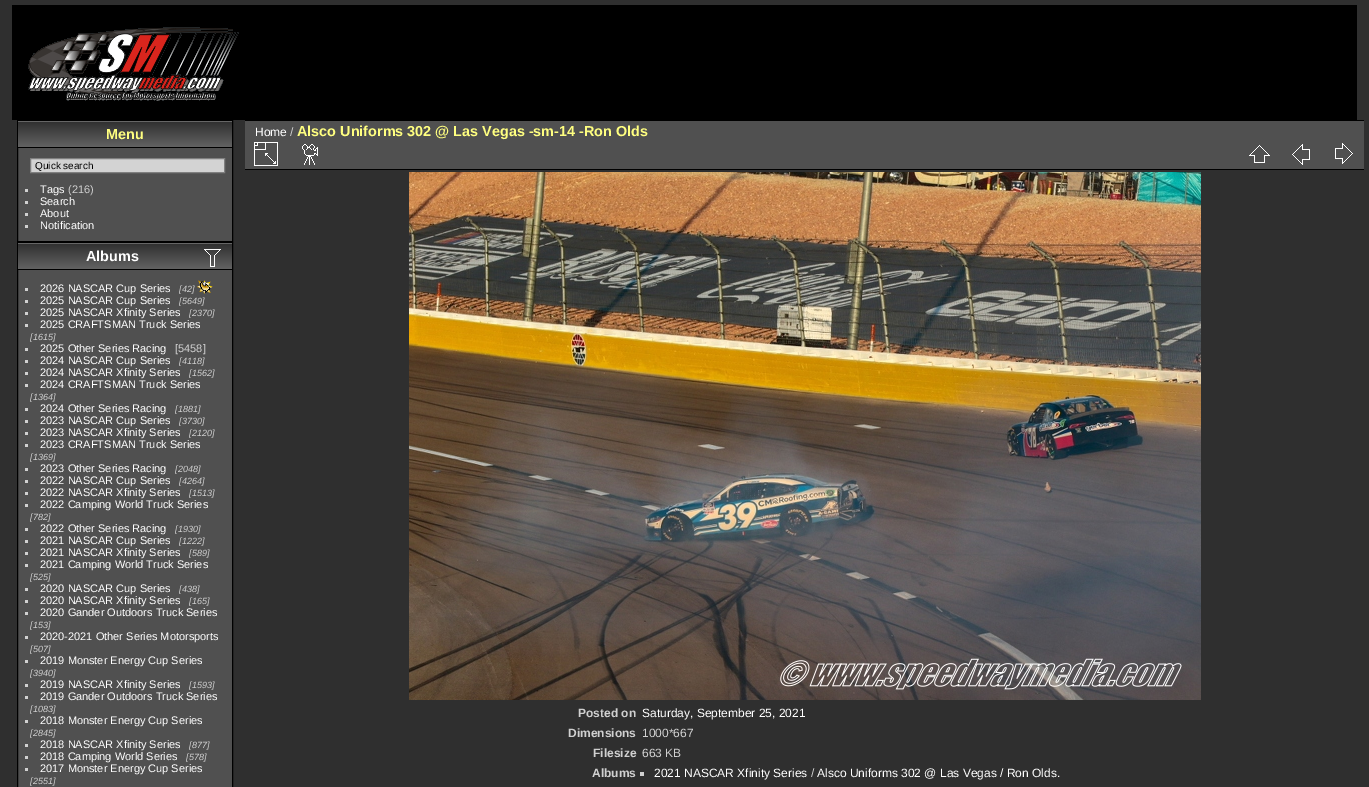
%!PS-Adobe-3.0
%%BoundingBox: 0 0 1369 787
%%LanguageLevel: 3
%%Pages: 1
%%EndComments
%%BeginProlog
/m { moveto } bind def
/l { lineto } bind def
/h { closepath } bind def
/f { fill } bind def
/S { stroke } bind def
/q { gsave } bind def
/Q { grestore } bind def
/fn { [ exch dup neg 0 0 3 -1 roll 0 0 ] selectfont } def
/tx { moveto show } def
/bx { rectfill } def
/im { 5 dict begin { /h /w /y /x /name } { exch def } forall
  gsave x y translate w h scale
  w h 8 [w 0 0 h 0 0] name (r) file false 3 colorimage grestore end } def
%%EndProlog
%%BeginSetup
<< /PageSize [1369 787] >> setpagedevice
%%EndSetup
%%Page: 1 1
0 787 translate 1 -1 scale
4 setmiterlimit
0.184 setgray
0 0 1369 787 bx
0 setgray
12 5 1345 115 bx
(image0.raw) 28 27 211 74 im
0.314 setgray
18 148 214 93 bx
0 setgray
17.5 120.5 215 121 rectstroke
(image1.raw) 18 121 214 26 im
18 147 214 1 bx
/LiberationSans-Bold 14.4 fn
1 1 0.502 setrgbcolor
(Menu) 106 139 tx
0.827 setgray
30.5 158.5 m 224.5 158.5 l 224.5 172.5 l 30.5 172.5 l h q f Q
0.502 setgray
S
/LiberationSans-Regular 10 fn
0 setgray
(Quick search) 35 169 tx
0.816 setgray
25 189 3 3 bx
/LiberationSans-Regular 11 fn
1 setgray
(Tags) 40 193 tx
0.816 setgray
(\(216\)) 68 193 tx
25 201 3 3 bx
1 setgray
(Search) 40 205 tx
0.816 setgray
25 213 3 3 bx
1 setgray
(About) 40 217 tx
0.816 setgray
25 225 3 3 bx
1 setgray
(Notification) 40 229 tx
0.314 setgray
18 270 214 517 bx
0 setgray
17.5 242.5 215 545 rectstroke
(image1.raw) 18 243 214 26 im
18 269 214 1 bx
/LiberationSans-Bold 14.4 fn
1 setgray
(Albums) 86 261 tx
(image2.raw) 204 249 17 18 im
0.816 setgray
25 288 3 3 bx
/LiberationSans-Regular 11 fn
1 setgray
(2026 NASCAR Cup Series) 40 292 tx
/LiberationSans-Italic 9 fn
0.816 setgray
([42]) 179 292 tx
(image3.raw) 197 280 16 14 im
25 300 3 3 bx
/LiberationSans-Regular 11 fn
1 setgray
(2025 NASCAR Cup Series) 40 304 tx
/LiberationSans-Italic 9 fn
0.816 setgray
([5649]) 179 304 tx
25 312 3 3 bx
/LiberationSans-Regular 11 fn
1 setgray
(2025 NASCAR Xfinity Series) 40 316 tx
/LiberationSans-Italic 9 fn
0.816 setgray
([2370]) 189 316 tx
25 324 3 3 bx
/LiberationSans-Regular 11 fn
1 setgray
(2025 CRAFTSMAN Truck Series) 40 328 tx
/LiberationSans-Italic 9 fn
0.816 setgray
([1615]) 30 340 tx
25 348 3 3 bx
/LiberationSans-Regular 11 fn
1 setgray
(2025 Other Series Racing) 40 352 tx
0.816 setgray
([5458]) 175 352 tx
25 360 3 3 bx
1 setgray
(2024 NASCAR Cup Series) 40 364 tx
/LiberationSans-Italic 9 fn
0.816 setgray
([4118]) 179 364 tx
25 372 3 3 bx
/LiberationSans-Regular 11 fn
1 setgray
(2024 NASCAR Xfinity Series) 40 376 tx
/LiberationSans-Italic 9 fn
0.816 setgray
([1562]) 189 376 tx
25 384 3 3 bx
/LiberationSans-Regular 11 fn
1 setgray
(2024 CRAFTSMAN Truck Series) 40 388 tx
/LiberationSans-Italic 9 fn
0.816 setgray
([1364]) 30 400 tx
25 408 3 3 bx
/LiberationSans-Regular 11 fn
1 setgray
(2024 Other Series Racing) 40 412 tx
/LiberationSans-Italic 9 fn
0.816 setgray
([1881]) 175 412 tx
25 420 3 3 bx
/LiberationSans-Regular 11 fn
1 setgray
(2023 NASCAR Cup Series) 40 424 tx
/LiberationSans-Italic 9 fn
0.816 setgray
([3730]) 179 424 tx
25 432 3 3 bx
/LiberationSans-Regular 11 fn
1 setgray
(2023 NASCAR Xfinity Series) 40 436 tx
/LiberationSans-Italic 9 fn
0.816 setgray
([2120]) 189 436 tx
25 444 3 3 bx
/LiberationSans-Regular 11 fn
1 setgray
(2023 CRAFTSMAN Truck Series) 40 448 tx
/LiberationSans-Italic 9 fn
0.816 setgray
([1369]) 30 460 tx
25 468 3 3 bx
/LiberationSans-Regular 11 fn
1 setgray
(2023 Other Series Racing) 40 472 tx
/LiberationSans-Italic 9 fn
0.816 setgray
([2048]) 175 472 tx
25 480 3 3 bx
/LiberationSans-Regular 11 fn
1 setgray
(2022 NASCAR Cup Series) 40 484 tx
/LiberationSans-Italic 9 fn
0.816 setgray
([4264]) 179 484 tx
25 492 3 3 bx
/LiberationSans-Regular 11 fn
1 setgray
(2022 NASCAR Xfinity Series) 40 496 tx
/LiberationSans-Italic 9 fn
0.816 setgray
([1513]) 189 496 tx
25 504 3 3 bx
/LiberationSans-Regular 11 fn
1 setgray
(2022 Camping World Truck Series) 40 508 tx
/LiberationSans-Italic 9 fn
0.816 setgray
([782]) 30 520 tx
25 528 3 3 bx
/LiberationSans-Regular 11 fn
1 setgray
(2022 Other Series Racing) 40 532 tx
/LiberationSans-Italic 9 fn
0.816 setgray
([1930]) 175 532 tx
25 540 3 3 bx
/LiberationSans-Regular 11 fn
1 setgray
(2021 NASCAR Cup Series) 40 544 tx
/LiberationSans-Italic 9 fn
0.816 setgray
([1222]) 179 544 tx
25 552 3 3 bx
/LiberationSans-Regular 11 fn
1 setgray
(2021 NASCAR Xfinity Series) 40 556 tx
/LiberationSans-Italic 9 fn
0.816 setgray
([589]) 189 556 tx
25 564 3 3 bx
/LiberationSans-Regular 11 fn
1 setgray
(2021 Camping World Truck Series) 40 568 tx
/LiberationSans-Italic 9 fn
0.816 setgray
([525]) 30 580 tx
25 588 3 3 bx
/LiberationSans-Regular 11 fn
1 setgray
(2020 NASCAR Cup Series) 40 592 tx
/LiberationSans-Italic 9 fn
0.816 setgray
([438]) 179 592 tx
25 600 3 3 bx
/LiberationSans-Regular 11 fn
1 setgray
(2020 NASCAR Xfinity Series) 40 604 tx
/LiberationSans-Italic 9 fn
0.816 setgray
([165]) 189 604 tx
25 612 3 3 bx
/LiberationSans-Regular 11 fn
1 setgray
(2020 Gander Outdoors Truck Series) 40 616 tx
/LiberationSans-Italic 9 fn
0.816 setgray
([153]) 30 628 tx
25 636 3 3 bx
/LiberationSans-Regular 11 fn
1 setgray
(2020-2021 Other Series Motorsports) 40 640 tx
/LiberationSans-Italic 9 fn
0.816 setgray
([507]) 30 652 tx
25 660 3 3 bx
/LiberationSans-Regular 11 fn
1 setgray
(2019 Monster Energy Cup Series) 40 664 tx
/LiberationSans-Italic 9 fn
0.816 setgray
([3940]) 30 676 tx
25 684 3 3 bx
/LiberationSans-Regular 11 fn
1 setgray
(2019 NASCAR Xfinity Series) 40 688 tx
/LiberationSans-Italic 9 fn
0.816 setgray
([1593]) 189 688 tx
25 696 3 3 bx
/LiberationSans-Regular 11 fn
1 setgray
(2019 Gander Outdoors Truck Series) 40 700 tx
/LiberationSans-Italic 9 fn
0.816 setgray
([1083]) 30 712 tx
25 720 3 3 bx
/LiberationSans-Regular 11 fn
1 setgray
(2018 Monster Energy Cup Series) 40 724 tx
/LiberationSans-Italic 9 fn
0.816 setgray
([2845]) 30 736 tx
25 744 3 3 bx
/LiberationSans-Regular 11 fn
1 setgray
(2018 NASCAR Xfinity Series) 40 748 tx
/LiberationSans-Italic 9 fn
0.816 setgray
([877]) 189 748 tx
25 756 3 3 bx
/LiberationSans-Regular 11 fn
1 setgray
(2018 Camping World Series) 40 760 tx
/LiberationSans-Italic 9 fn
0.816 setgray
([578]) 186 760 tx
25 768 3 3 bx
/LiberationSans-Regular 11 fn
1 setgray
(2017 Monster Energy Cup Series) 40 772 tx
/LiberationSans-Italic 9 fn
0.816 setgray
([2551]) 30 784 tx
0.314 setgray
245 121 1119 48 bx
0 setgray
245 169 1119 1 bx
(image4.raw) 254 142 24 24 im
(image5.raw) 302 144 16 21 im
(image6.raw) 1249 145 21 18 im
(image7.raw) 1292 144 18 21 im
(image8.raw) 1335 143 18 21 im
245 120 1119 1 bx
/LiberationSans-Regular 12 fn
1 setgray
(Home) 255 136 tx
0.816 setgray
(/) 290 136 tx
/LiberationSans-Bold 14.4 fn
1 1 0.502 setrgbcolor
(Alsco Uniforms 302 @ Las Vegas -sm-14 -Ron Olds) 297 136 tx
(image9.raw) 409 172 792 528 im
/LiberationSans-Bold 12 fn
0.816 setgray
(Posted on) 578 717 tx
/LiberationSans-Regular 12 fn
1 setgray
(Saturday, September 25, 2021) 642 717 tx
/LiberationSans-Bold 12 fn
0.816 setgray
(Dimensions) 568 737 tx
/LiberationSans-Regular 12 fn
(1000*667) 642 737 tx
/LiberationSans-Bold 12 fn
(Filesize) 593 757 tx
/LiberationSans-Regular 12 fn
(663 KB) 642 757 tx
/LiberationSans-Bold 12 fn
(Albums) 592 777 tx
640 772 4 4 bx
/LiberationSans-Regular 12 fn
1 setgray
(2021 NASCAR Xfinity Series) 654 777 tx
0.816 setgray
(/) 811 777 tx
1 setgray
(Alsco Uniforms 302 @ Las Vegas / Ron Olds.) 817 777 tx
showpage
%%EOF
